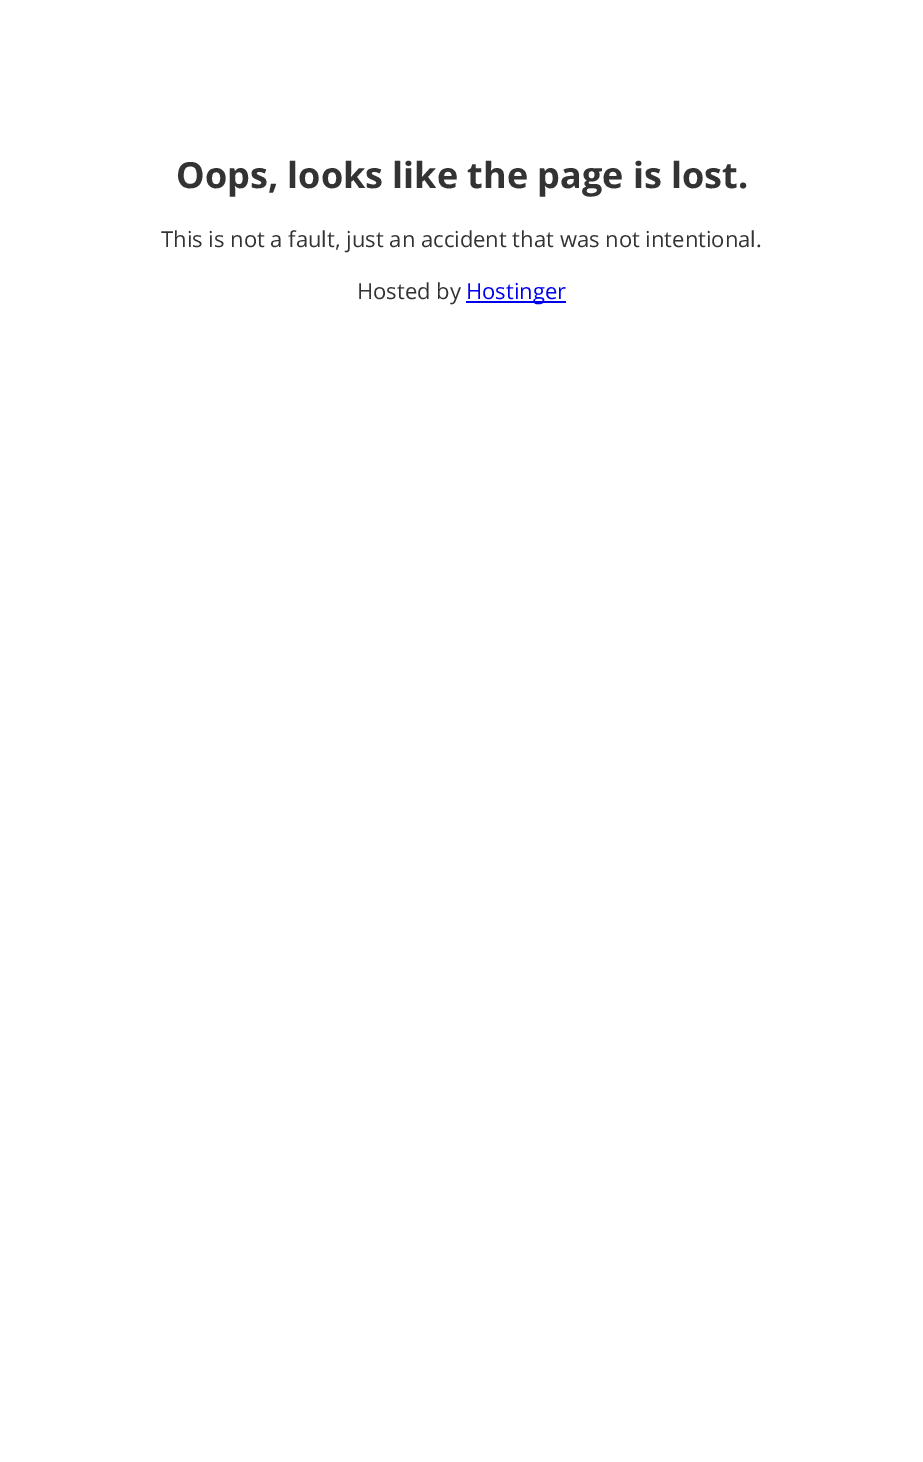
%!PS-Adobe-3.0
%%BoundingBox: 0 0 923 1462
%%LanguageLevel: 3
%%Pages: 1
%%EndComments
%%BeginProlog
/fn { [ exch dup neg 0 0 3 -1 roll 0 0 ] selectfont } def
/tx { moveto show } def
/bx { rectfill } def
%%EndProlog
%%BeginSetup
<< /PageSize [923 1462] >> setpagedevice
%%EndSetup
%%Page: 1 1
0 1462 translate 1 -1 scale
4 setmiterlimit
1 setgray
0 0 923 1462 bx
/OpenSans-Bold 36 fn
0.2 setgray
(Oops, looks like the page is lost.) 176 188 tx
/OpenSans-Regular 22 fn
(This is not a fault, just an accident that was not intentional.) 161 247 tx
(Hosted by) 357 299 tx
0 0 0.933 setrgbcolor
466 301 100 2 bx
(Hostinger) 466 299 tx
showpage
%%EOF
